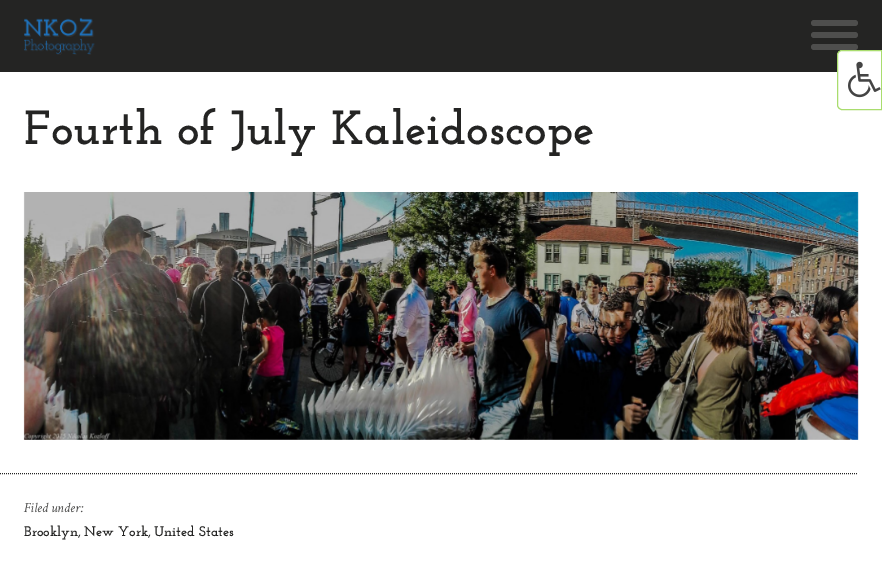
%!PS-Adobe-3.0
%%BoundingBox: 0 0 882 579
%%LanguageLevel: 3
%%Pages: 1
%%EndComments
%%BeginProlog
/m { moveto } bind def
/l { lineto } bind def
/c { curveto } bind def
/h { closepath } bind def
/f { fill } bind def
/S { stroke } bind def
/q { gsave } bind def
/Q { grestore } bind def
/fn { [ exch dup neg 0 0 3 -1 roll 0 0 ] selectfont } def
/tx { moveto show } def
/bx { rectfill } def
/rr { 5 dict begin { /r /h /w /y /x } { exch def } forall
  x r add y moveto x w add y 2 copy h add r arct x w add y h add x 1 index r arct
  x y h add x y r arct x y 2 copy exch w add exch r arct closepath end } def
/im { 5 dict begin { /h /w /y /x /name } { exch def } forall
  gsave x y translate w h scale
  w h 8 [w 0 0 h 0 0] name (r) file false 3 colorimage grestore end } def
%%EndProlog
%%BeginSetup
<< /PageSize [882 579] >> setpagedevice
%%EndSetup
%%Page: 1 1
0 579 translate 1 -1 scale
4 setmiterlimit
1 setgray
0 0 882 579 bx
0.141 0.141 0.137 setrgbcolor
0 0 882 72 bx
1 setgray
842 50.5 m 881.5 50.5 l 881.5 109.5 l 842 109.5 l 839.5 109.5 837.5 107.5 837.5 105 c 837.5 55 l 837.5 52.5 839.5 50.5 842 50.5 c h q f Q
0.663 0.867 0.431 setrgbcolor
S
(image0.raw) 848 61 33 37 im
(image1.raw) 24 17 71 38 im
0.306 0.306 0.302 setrgbcolor
811 32 47 6 3 rr f
811 20 47 6 3 rr f
811 44 47 6 3 rr f
/JosefinSlab-Bold 48 fn
0.141 0.141 0.137 setrgbcolor
(Fourth of July Kaleidoscope) 24 144 tx
(image2.raw) 23 192 836 248 im
[1 1] 0 setdash
-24 473.5 m 858 473.5 l S
/CrimsonText-Italic 14 fn
0.318 0.318 0.314 setrgbcolor
(Filed under:) 24 512 tx
/JosefinSlab-Bold 14 fn
0.141 0.141 0.137 setrgbcolor
(Brooklyn,) 24 536 tx
(New York,) 84 536 tx
(United States) 154 536 tx
showpage
%%EOF
